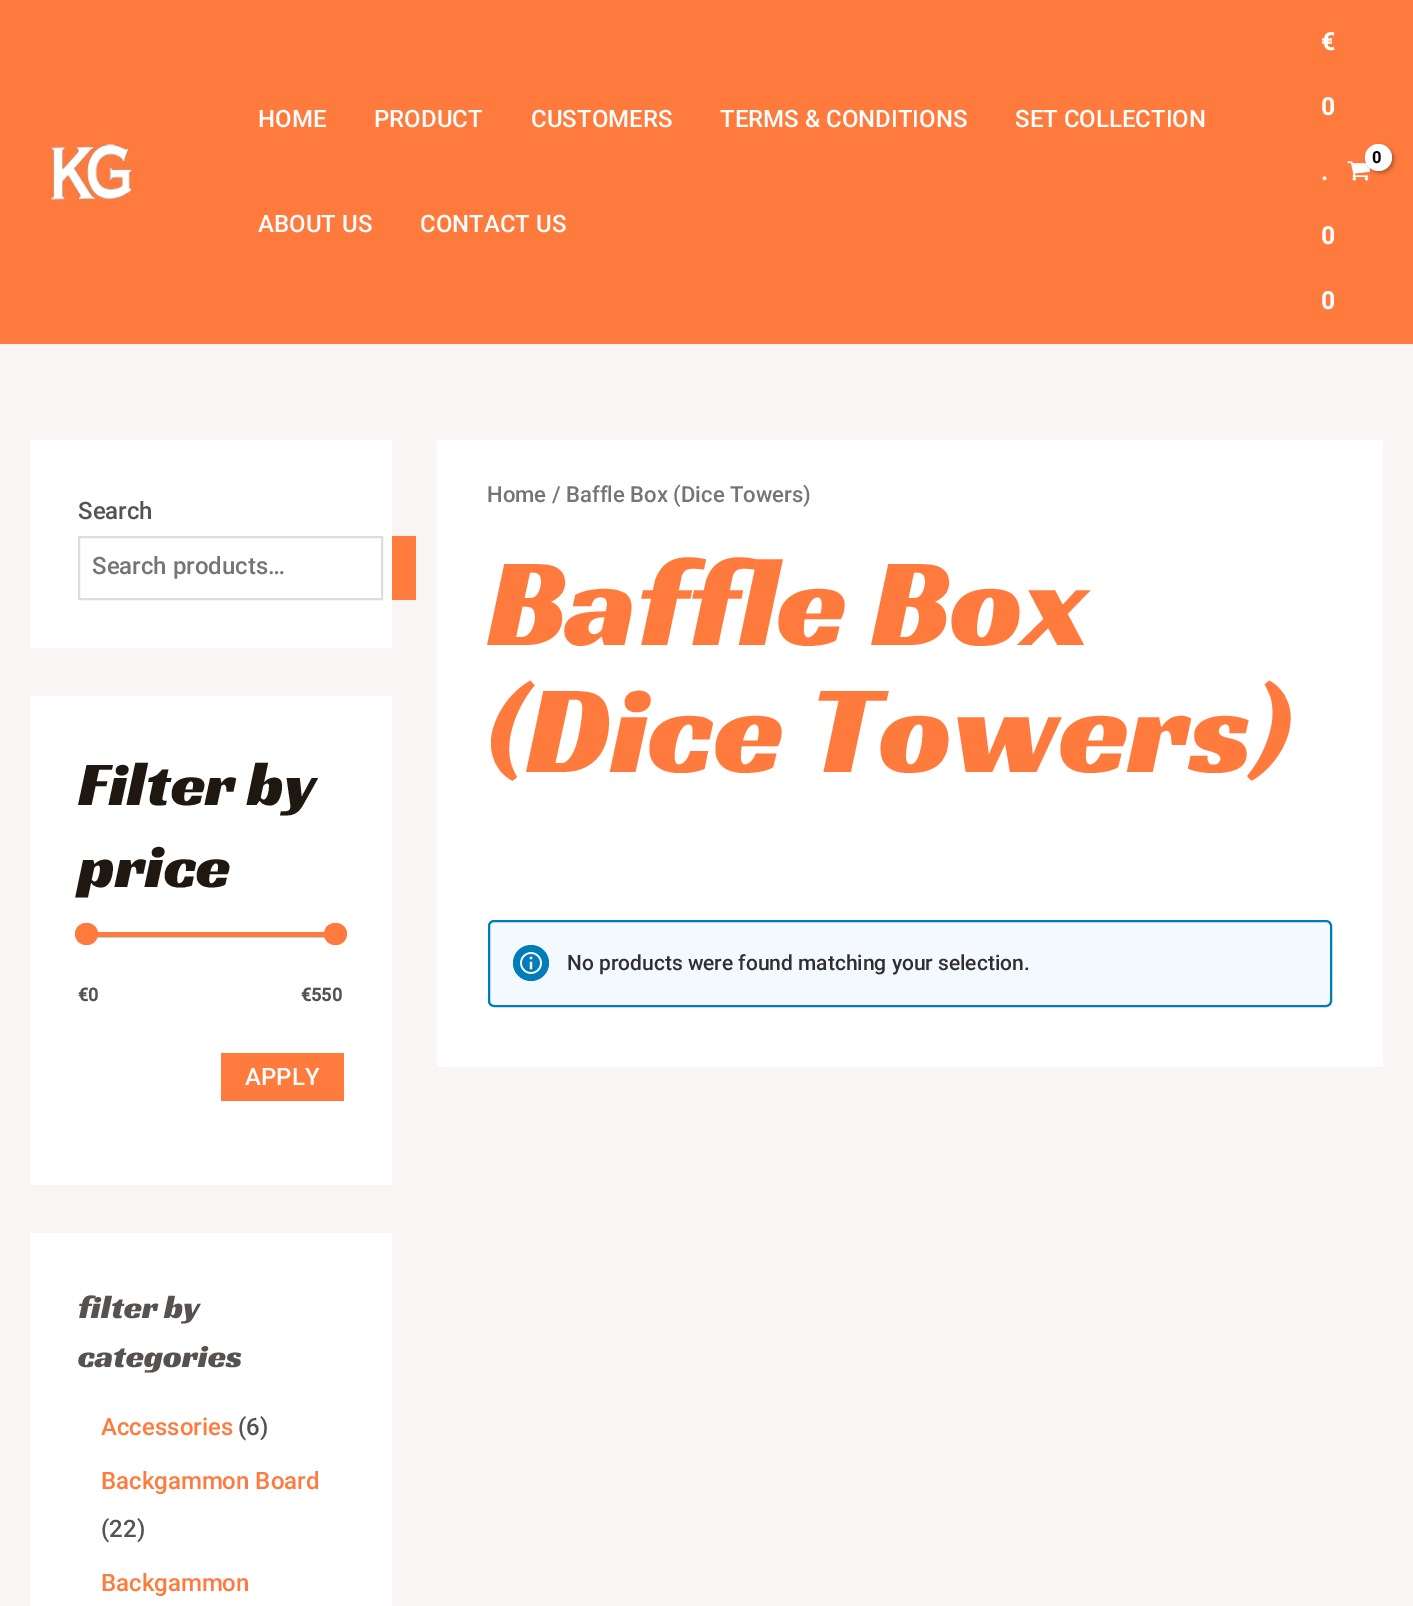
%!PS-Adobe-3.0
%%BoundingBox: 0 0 1413 1606
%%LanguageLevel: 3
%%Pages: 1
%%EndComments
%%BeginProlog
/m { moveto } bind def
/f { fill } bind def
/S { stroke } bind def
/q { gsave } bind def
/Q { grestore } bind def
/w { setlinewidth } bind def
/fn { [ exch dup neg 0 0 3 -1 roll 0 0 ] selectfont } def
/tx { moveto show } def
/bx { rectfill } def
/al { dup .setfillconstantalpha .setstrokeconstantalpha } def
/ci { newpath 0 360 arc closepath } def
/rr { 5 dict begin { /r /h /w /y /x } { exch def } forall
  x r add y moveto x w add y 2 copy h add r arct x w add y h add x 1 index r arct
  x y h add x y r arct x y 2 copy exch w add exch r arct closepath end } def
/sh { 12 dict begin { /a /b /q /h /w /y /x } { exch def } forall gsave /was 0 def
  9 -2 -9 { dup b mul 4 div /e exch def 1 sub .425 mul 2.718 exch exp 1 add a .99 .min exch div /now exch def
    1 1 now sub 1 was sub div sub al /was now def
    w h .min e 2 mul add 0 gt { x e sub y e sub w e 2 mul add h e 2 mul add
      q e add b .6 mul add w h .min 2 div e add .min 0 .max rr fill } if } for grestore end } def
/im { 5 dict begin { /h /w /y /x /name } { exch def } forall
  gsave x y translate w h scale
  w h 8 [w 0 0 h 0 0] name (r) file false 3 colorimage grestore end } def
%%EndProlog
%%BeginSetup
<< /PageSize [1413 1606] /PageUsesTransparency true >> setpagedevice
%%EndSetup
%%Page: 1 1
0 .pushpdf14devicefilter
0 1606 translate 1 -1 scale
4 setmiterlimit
0.973 0.961 0.957 setrgbcolor
0 0 1413 1606 bx
1 0.478 0.239 setrgbcolor
0 0 1413 344 bx
(image0.raw) 50 144 83 56 im
/Roboto-Medium 24 fn
1 setgray
(HOME) 258 127 tx
(PRODUCT) 374 127 tx
(CUSTOMERS) 531 127 tx
(TERMS & CONDITIONS) 720 127 tx
(SET COLLECTION) 1015 127 tx
(ABOUT US) 258 232 tx
(CONTACT US) 420 232 tx
/Roboto-Bold 24 fn
(€) 1321 50 tx
(0) 1321 115 tx
(.) 1321 180 tx
(0) 1321 244 tx
(0) 1321 309 tx
(image1.raw) 1347 161 23 20 im
0 setgray
1367 146 27 27 13.5 2 0.3 sh
1 setgray
1378.5 157.5 13.5 ci f
/Roboto-Bold 16 fn
0 setgray
1372 163 m -1 0 (0) ashow
1 setgray
30 440 362 208 bx
/Roboto-Medium 24 fn
0.341 0.322 0.314 setrgbcolor
(Search) 78 519 tx
0.867 setgray
2 w
79 537 303 62 rectstroke
0.459 setgray
(Search products…) 92 574 tx
1 0.478 0.239 setrgbcolor
392 536 24 64 bx
1 setgray
30 696 362 489 bx
/RacingSansOne-Regular 63 fn
0.118 0.094 0.063 setrgbcolor
(Filter by) 78 805 tx
(price) 78 887 tx
0.812 0.808 0.808 setrgbcolor
97 937 228 1 bx
1 0.478 0.239 setrgbcolor
97 932 228 5 bx
75 923 23 22 11 rr f
324 923 23 22 11 rr f
/Roboto-Bold 18 fn
0.341 0.322 0.314 setrgbcolor
(€0) 78 1001 tx
(€550) 301 1001 tx
1 0.478 0.239 setrgbcolor
221 1053 123 48 bx
/Roboto-Medium 24 fn
1 setgray
(APPLY) 245 1085 tx
30 1233 362 373 bx
/RacingSansOne-Regular 33 fn
0.341 0.322 0.314 setrgbcolor
(filter by) 78 1318 tx
(categories) 78 1367 tx
/Roboto-Medium 24 fn
1 0.478 0.239 setrgbcolor
(Accessories) 101 1435 tx
0.341 0.322 0.314 setrgbcolor
(\(6\)) 238 1435 tx
1 0.478 0.239 setrgbcolor
(Backgammon Board) 101 1489 tx
0.341 0.322 0.314 setrgbcolor
(\(22\)) 101 1537 tx
1 0.478 0.239 setrgbcolor
(Backgammon) 101 1591 tx
1 setgray
437 440 946 627 bx
/Roboto-Medium 22.1 fn
0.459 setgray
(Home / Baffle Box \(Dice Towers\)) 487 502 tx
/RacingSansOne-Regular 127.5 fn
1 0.478 0.239 setrgbcolor
(Baffle Box) 487 645 tx
(\(Dice Towers\)) 487 772 tx
0.957 0.973 1 setrgbcolor
489 921 842 85 5 rr q f Q
0 0.486 0.729 setrgbcolor
S
531 963 18 ci f
(image2.raw) 520 952 22 22 im
/Roboto-Medium 21 fn
0.184 setgray
(No products were found matching your selection.) 567 970 tx
.poppdf14devicefilter showpage
%%EOF
